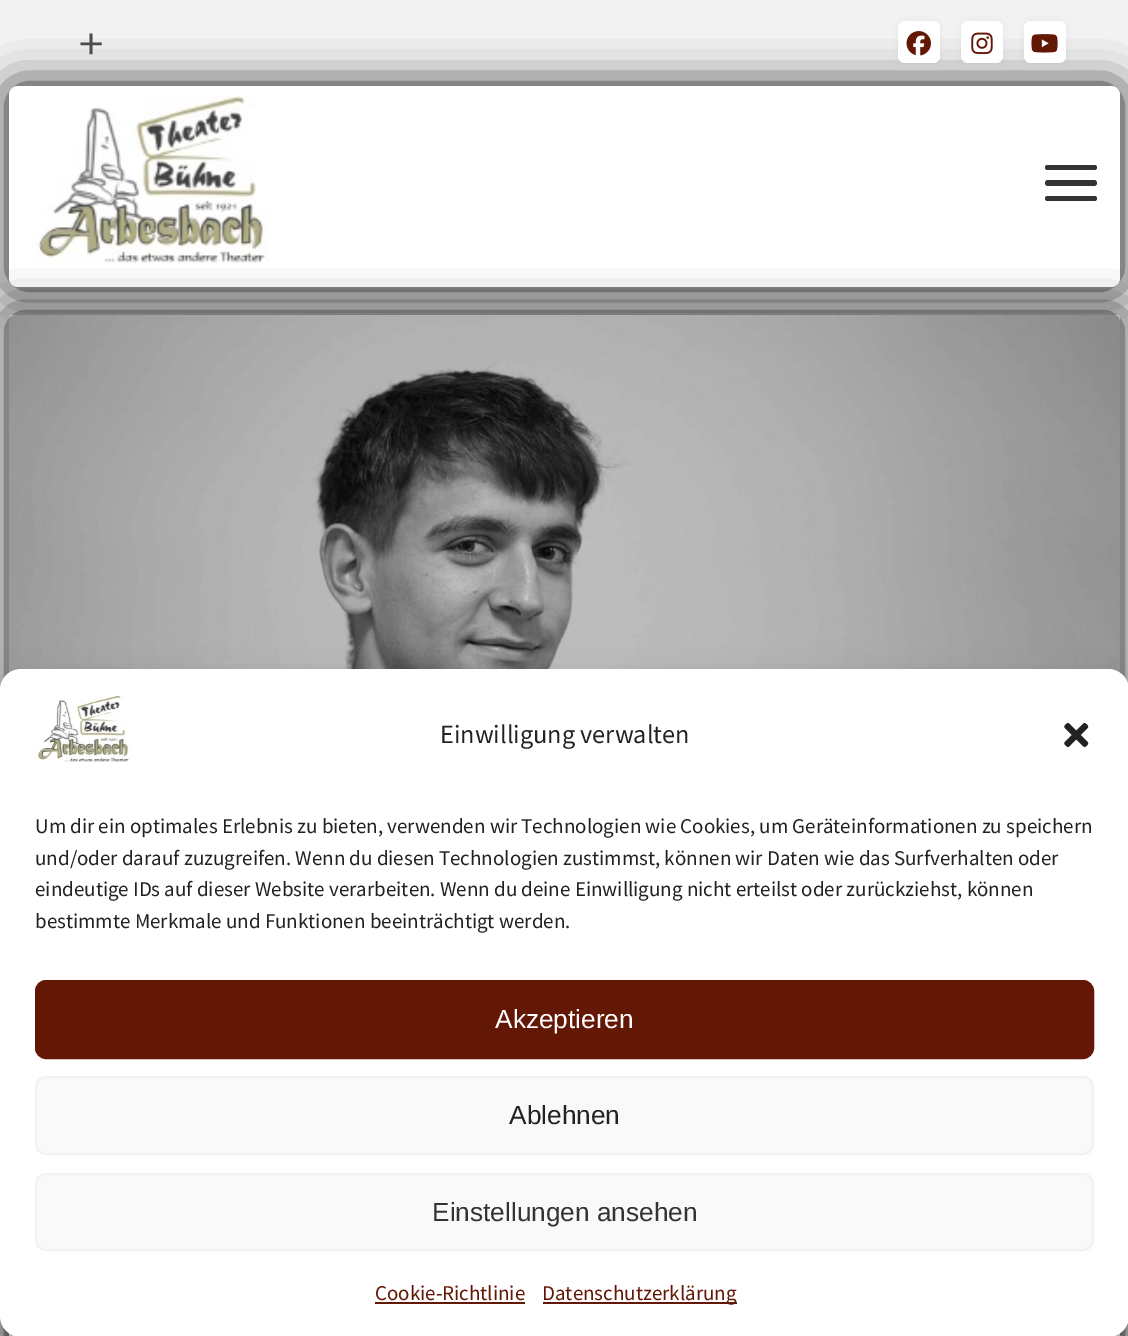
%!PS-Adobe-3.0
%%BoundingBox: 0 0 1128 1336
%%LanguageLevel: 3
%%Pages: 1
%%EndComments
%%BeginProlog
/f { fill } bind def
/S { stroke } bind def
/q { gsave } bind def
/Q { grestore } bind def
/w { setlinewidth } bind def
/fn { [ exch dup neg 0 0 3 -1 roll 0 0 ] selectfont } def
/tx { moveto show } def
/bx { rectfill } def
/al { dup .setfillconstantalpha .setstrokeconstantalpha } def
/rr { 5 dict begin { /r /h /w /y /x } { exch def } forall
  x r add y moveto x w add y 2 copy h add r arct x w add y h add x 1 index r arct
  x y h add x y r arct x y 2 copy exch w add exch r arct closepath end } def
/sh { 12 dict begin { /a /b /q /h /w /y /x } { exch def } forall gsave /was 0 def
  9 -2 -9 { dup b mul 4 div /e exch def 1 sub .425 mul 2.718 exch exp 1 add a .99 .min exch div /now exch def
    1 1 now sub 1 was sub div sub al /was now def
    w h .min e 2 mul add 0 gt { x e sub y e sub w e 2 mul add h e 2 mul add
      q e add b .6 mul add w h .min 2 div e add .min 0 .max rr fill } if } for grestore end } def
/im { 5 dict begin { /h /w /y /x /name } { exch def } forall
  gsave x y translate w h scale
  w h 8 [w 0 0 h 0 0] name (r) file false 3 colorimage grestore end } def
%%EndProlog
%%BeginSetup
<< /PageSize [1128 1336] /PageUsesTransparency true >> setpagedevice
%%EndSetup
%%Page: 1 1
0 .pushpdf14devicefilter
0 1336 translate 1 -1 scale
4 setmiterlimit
0.949 setgray
0 0 1128 1336 bx
0 setgray
9 86 1111 201 9 21 0.9 sh
1 setgray
9 86 1111 201 9 rr f
(image0.raw) 32 94 239 169 im
0.2 setgray
1045 165 52 5 2.5 rr f
1045 180 52 6 3 rr f
1045 196 52 5 2.5 rr f
/Montserrat-Thin 49 fn
0.298 setgray
(+) 77 61 tx
0 setgray
898 21 42 42 7 3.5 0.05 sh
1 setgray
898 21 42 42 7 rr f
(image1.raw) 906 31 25 25 im
0 setgray
961 21 42 42 7 3.5 0.05 sh
1 setgray
961 21 42 42 7 rr f
(image2.raw) 971 32 22 22 im
0 setgray
1024 21 42 42 7 3.5 0.05 sh
1 setgray
1024 21 42 42 7 rr f
(image3.raw) 1031 34 27 19 im
0 setgray
9 315 1111 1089 5 21 0.9 sh
1 setgray
9 315 1111 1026 5 rr f
(image4.raw) 9 315 1111 358 im
0 setgray
0 679 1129 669 21 5 0.23 sh
0 686 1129 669 21 17.5 0.19 sh
1 setgray
0 669 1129 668 21 rr f
(image5.raw) 35 695 96 67 im
/SourceSansPro-Regular 26.25 fn
0.133 setgray
(Einwilligung verwalten) 440 743 tx
(image6.raw) 1064 723 25 24 im
/SourceSansPro-Regular 21 fn
(Um dir ein optimales Erlebnis zu bieten, verwenden wir Technologien wie Cookies, um Geräteinformationen zu speichern) 35 833 tx
(und/oder darauf zuzugreifen. Wenn du diesen Technologien zustimmst, können wir Daten wie das Surfverhalten oder) 35 865 tx
(eindeutige IDs auf dieser Website verarbeiten. Wenn du deine Einwilligung nicht erteilst oder zurückziehst, können) 35 896 tx
(bestimmte Merkmale und Funktionen beeinträchtigt werden.) 35 928 tx
0.388 0.09 0.02 setrgbcolor
36 981 1057 77 10 rr q f Q
2 w
S
/LiberationSans-Regular 26.25 fn
1 setgray
(Akzeptieren) 495 1028 tx
0.976 setgray
36 1077 1057 77 10 rr q f Q
0.949 setgray
S
0.133 setgray
(Ablehnen) 509 1124 tx
0.976 setgray
36 1174 1057 76 10 rr q f Q
0.949 setgray
S
0.2 setgray
(Einstellungen ansehen) 432 1221 tx
/SourceSansPro-Regular 21 fn
0.388 0.09 0.02 setrgbcolor
(Cookie-Richtlinie) 375 1300 tx
375 1302 150 2 bx
543 1302 194 2 bx
(Datenschutzerklärung) 542 1300 tx
.poppdf14devicefilter showpage
%%EOF
